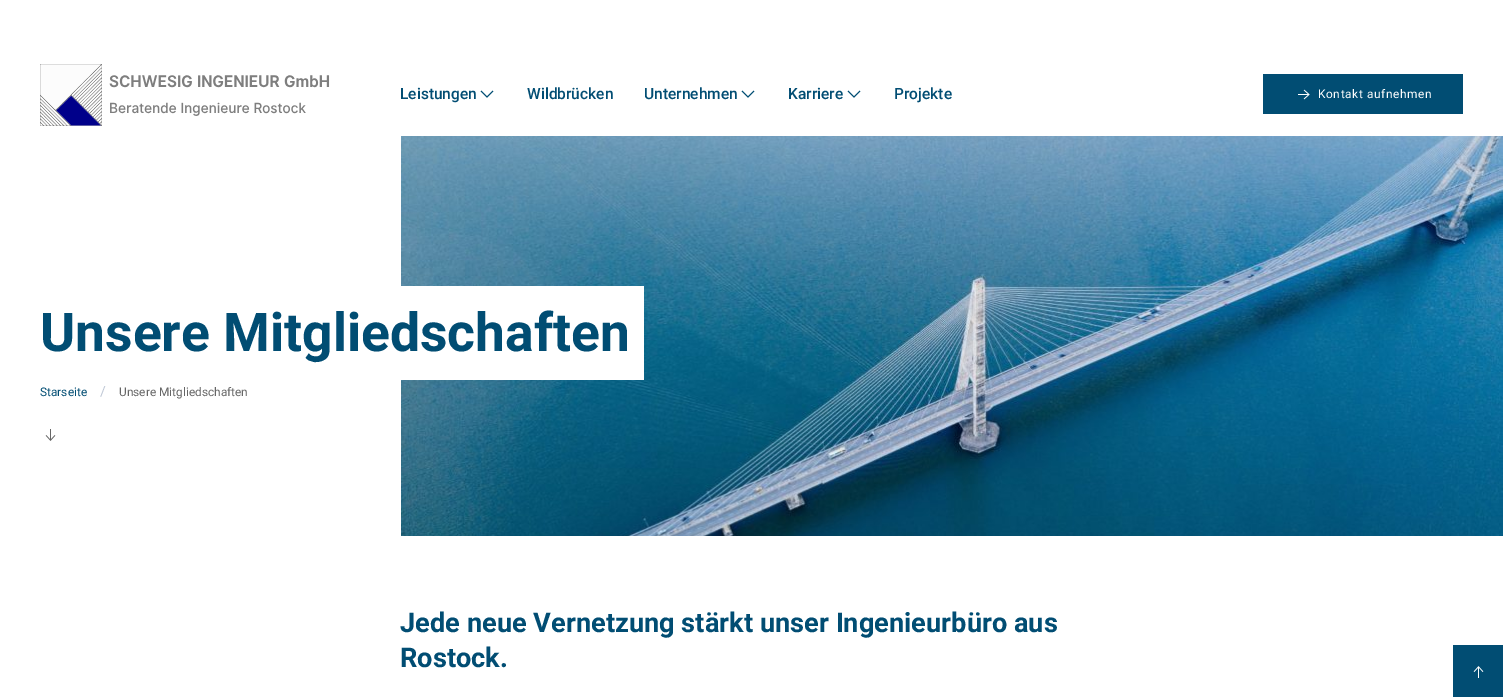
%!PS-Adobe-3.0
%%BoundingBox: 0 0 1503 697
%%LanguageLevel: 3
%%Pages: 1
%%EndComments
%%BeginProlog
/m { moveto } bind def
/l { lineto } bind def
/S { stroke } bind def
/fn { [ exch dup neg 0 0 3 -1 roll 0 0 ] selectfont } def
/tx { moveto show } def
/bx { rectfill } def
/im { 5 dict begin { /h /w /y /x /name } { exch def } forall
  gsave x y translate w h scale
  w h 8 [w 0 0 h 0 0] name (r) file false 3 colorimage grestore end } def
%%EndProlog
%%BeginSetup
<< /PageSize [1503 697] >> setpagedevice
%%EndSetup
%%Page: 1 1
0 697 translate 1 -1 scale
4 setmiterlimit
1 setgray
0 0 1503 697 bx
(image0.raw) 40 64 290 62 im
/Roboto-Medium 15.5 fn
0.004 0.302 0.451 setrgbcolor
(Leistungen) 400 99 tx
493 91 m 487 97 l 481 91 l S
(Wildbrücken) 527 99 tx
(Unternehmen) 644 99 tx
754 91 m 748 97 l 742 91 l S
(Karriere) 788 99 tx
860 91 m 854 97 l 848 91 l S
(Projekte) 894 99 tx
1263 74 200 40 bx
(image1.raw) 1298 89 12 11 im
/Roboto-Regular 11.9 fn
1 setgray
1318 98 m 0.6 0 (Kontakt aufnehmen) ashow
(image3.raw) 401 136 1102 400 im
401 286 243 94 bx
/Roboto-Bold 53.4 fn
0.004 0.302 0.451 setrgbcolor
(Unsere Mitgliedschaften) 40 351 tx
/Roboto-Regular 11.9 fn
(Starseite) 40 396 tx
/Roboto-Regular 14 fn
0.749 0.784 0.839 setrgbcolor
(/) 100 396 tx
/Roboto-Regular 11.9 fn
0.4 setgray
(Unsere Mitgliedschaften) 119 396 tx
(image2.raw) 45 429 11 12 im
/Roboto-Bold 27.2 fn
0.004 0.302 0.451 setrgbcolor
(Jede neue Vernetzung stärkt unser Ingenieurbüro aus) 400 632 tx
(Rostock.) 400 667 tx
1453 645 50 52 bx
(image4.raw) 1473 666 11 12 im
showpage
%%EOF
